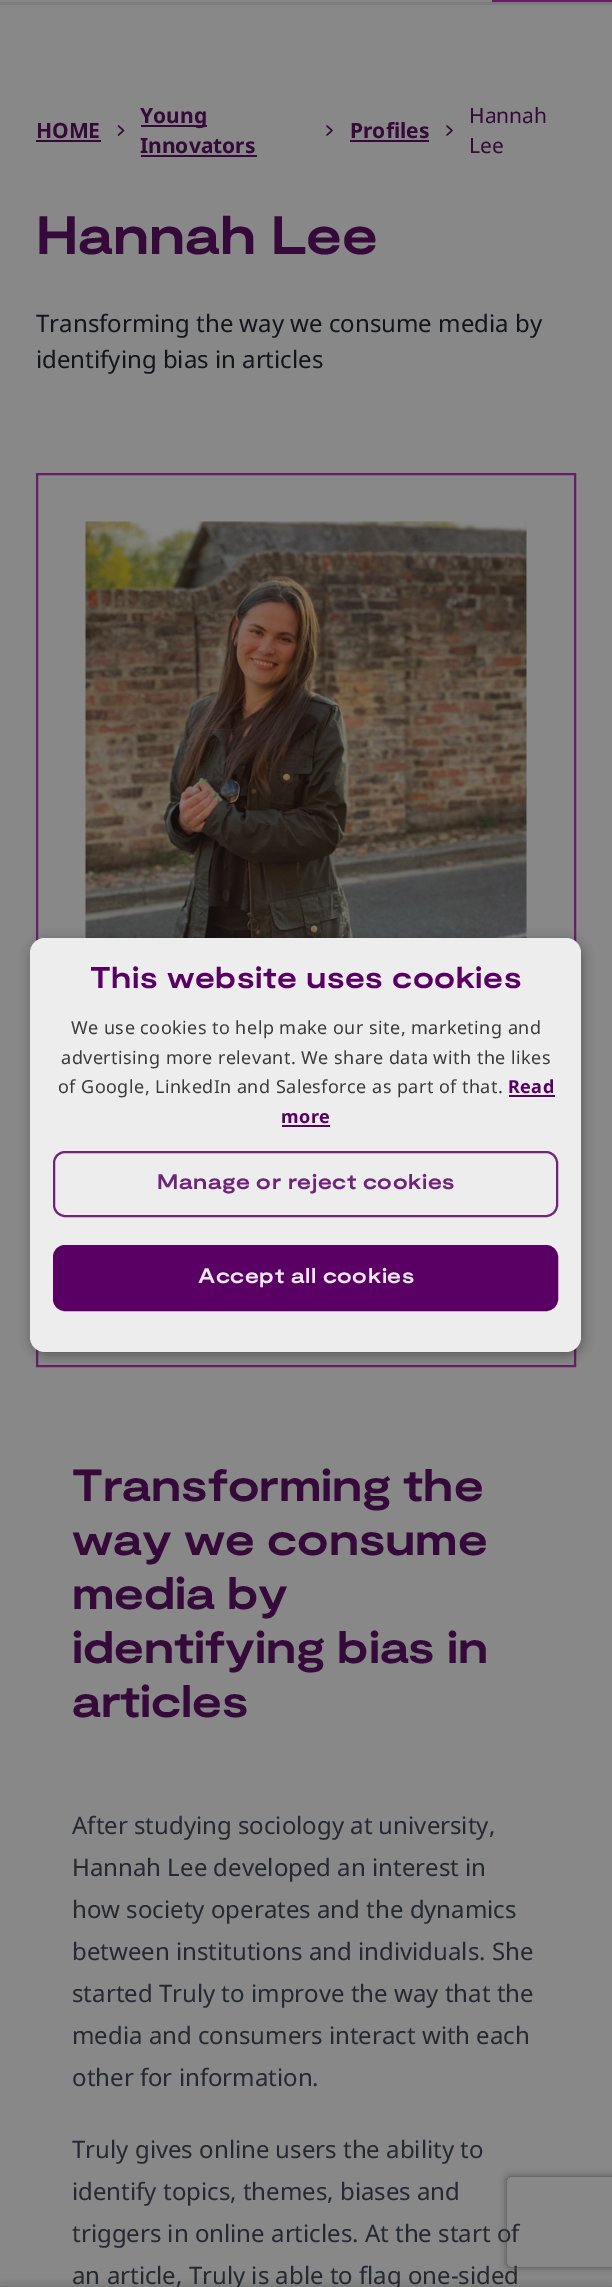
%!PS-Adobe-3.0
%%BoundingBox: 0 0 612 2287
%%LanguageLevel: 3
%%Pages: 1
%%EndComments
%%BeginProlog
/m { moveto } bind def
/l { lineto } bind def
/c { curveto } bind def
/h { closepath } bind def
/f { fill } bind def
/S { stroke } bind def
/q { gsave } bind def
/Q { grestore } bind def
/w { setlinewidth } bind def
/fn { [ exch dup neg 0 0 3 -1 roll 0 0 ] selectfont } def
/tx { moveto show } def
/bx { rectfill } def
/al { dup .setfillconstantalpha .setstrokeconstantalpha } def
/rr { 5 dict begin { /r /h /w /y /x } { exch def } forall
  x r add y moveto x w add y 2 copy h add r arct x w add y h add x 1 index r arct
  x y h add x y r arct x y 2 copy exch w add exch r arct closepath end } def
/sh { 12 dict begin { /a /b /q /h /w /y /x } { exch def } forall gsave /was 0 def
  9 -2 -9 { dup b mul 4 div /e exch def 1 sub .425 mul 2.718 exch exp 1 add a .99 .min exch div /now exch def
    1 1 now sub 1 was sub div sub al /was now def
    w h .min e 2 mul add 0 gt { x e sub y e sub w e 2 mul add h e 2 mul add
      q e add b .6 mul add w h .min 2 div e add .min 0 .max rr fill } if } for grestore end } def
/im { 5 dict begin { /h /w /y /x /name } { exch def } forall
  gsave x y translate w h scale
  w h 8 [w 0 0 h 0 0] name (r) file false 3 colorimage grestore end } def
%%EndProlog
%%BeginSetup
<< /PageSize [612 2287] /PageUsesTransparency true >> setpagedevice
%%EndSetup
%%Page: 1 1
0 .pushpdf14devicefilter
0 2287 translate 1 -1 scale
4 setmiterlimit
0.533 setgray
0 0 612 2287 bx
0.482 0.486 0.494 setrgbcolor
0 2 612 3 bx
0.408 0.118 0.4 setrgbcolor
492 0 120 2 bx
/NotoSans-Bold 21 fn
0.212 0.035 0.231 setrgbcolor
(HOME) 36 138 tx
36 140 65 2 bx
1.4 w
1 setlinecap
1 setlinejoin
118.5 126 m 123.5 130.5 l 118.5 135 l S
141 125 66 2 bx
(Young) 140 123 tx
(Innovators) 140 153 tx
141 155 116 2 bx
327 126 m 332 130.5 l 327 135 l S
(Profiles) 350 138 tx
350 140 79 2 bx
447 126 m 452 130.5 l 447 135 l S
/NotoSans-Regular 21 fn
(Hannah) 469 123 tx
(Lee) 469 153 tx
/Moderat-Bold 54 fn
(Hannah Lee) 36 254 tx
/NotoSans-Regular 24 fn
0.067 0.082 0.11 setrgbcolor
(Transforming the way we consume media by) 36 332 tx
(identifying bias in articles) 36 368 tx
0.408 0.118 0.4 setrgbcolor
2 w
0 setlinecap
0 setlinejoin
37 474 538 892 rectstroke
(image0.raw) 85 521 442 417 im
/Moderat-Bold 45 fn
0.212 0.035 0.231 setrgbcolor
(Transforming the) 72 1501 tx
(way we consume) 72 1555 tx
(media by) 72 1609 tx
(identifying bias in) 72 1663 tx
(articles) 72 1717 tx
/NotoSans-Regular 24 fn
0.141 0.161 0.192 setrgbcolor
(After studying sociology at university,) 72 1834 tx
(Hannah Lee developed an interest in) 72 1876 tx
(how society operates and the dynamics) 72 1918 tx
(between institutions and individuals. She) 72 1960 tx
(started Truly to improve the way that the) 72 2002 tx
(media and consumers interact with each) 72 2044 tx
(other for information.) 72 2086 tx
(Truly gives online users the ability to) 72 2158 tx
(identify topics, themes, biases and) 72 2200 tx
(triggers in online articles. At the start of) 72 2242 tx
(an article, Truly is able to flag one-sided) 72 2284 tx
0 setgray
32 941 550 414 15 6 0.35 sh
0.929 setgray
30 938 551 414 15 rr f
/Moderat-Bold 30 fn
0.353 0 0.392 setrgbcolor
90 988 m 0.6 0 (This website uses cookies) ashow
/NotoSans-Regular 18 fn
0.227 setgray
71 1034 m 0.45 0 (We use cookies to help make our site, marketing and) ashow
61 1064 m 0.45 0 (advertising more relevant. We share data with the likes) ashow
58 1093 m 0.45 0 (of Google, LinkedIn and Salesforce as part of that.) ashow
/NotoSans-Bold 18 fn
0.353 0 0.392 setrgbcolor
508 1093 m 0.45 0 (Read) ashow
509 1095 46 2 bx
281 1123 m 0.45 0 (more) ashow
282 1125 48 2 bx
0.439 0.141 0.475 setrgbcolor
54 1152 503 64 11 rr S
/Moderat-Bold 21 fn
157 1189 m 0.6 0 (Manage or reject cookies) ashow
0.353 0 0.392 setrgbcolor
54 1246 503 64 11 rr q f Q
S
0.941 0.91 0.945 setrgbcolor
198 1283 m 0.6 0 (Accept all cookies) ashow
q
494 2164 m 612 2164 l 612 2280 l 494 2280 l h 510 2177 m 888 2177 l 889.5 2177 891 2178.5 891 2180 c 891 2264 l 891 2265.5 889.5 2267 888 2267 c 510 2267 l 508.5 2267 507 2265.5 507 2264 c 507 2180 l 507 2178.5 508.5 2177 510 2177 c h eoclip newpath
0.286 setgray
507 2177 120 90 3 4 1 sh
Q
0.035 setgray
0 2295 612 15 0 7.5 0.75 sh
.poppdf14devicefilter showpage
%%EOF
